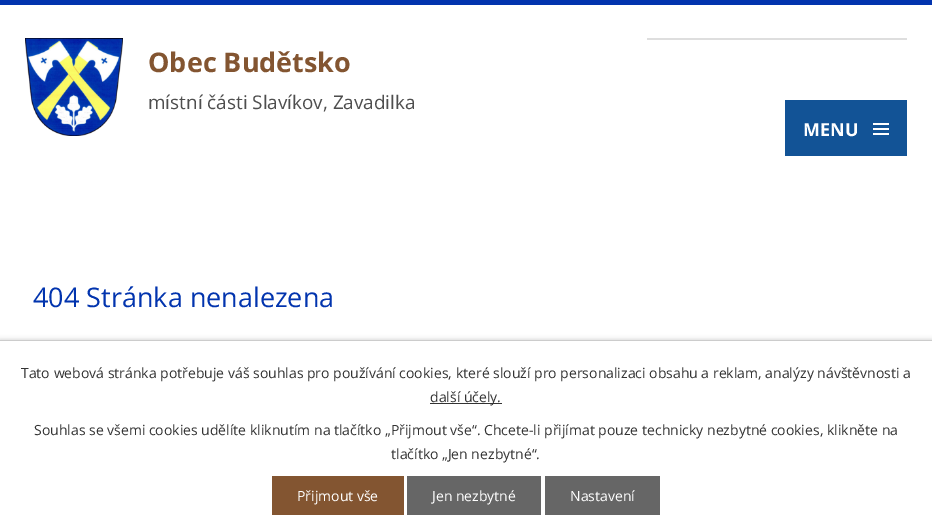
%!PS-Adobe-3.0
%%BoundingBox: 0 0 932 525
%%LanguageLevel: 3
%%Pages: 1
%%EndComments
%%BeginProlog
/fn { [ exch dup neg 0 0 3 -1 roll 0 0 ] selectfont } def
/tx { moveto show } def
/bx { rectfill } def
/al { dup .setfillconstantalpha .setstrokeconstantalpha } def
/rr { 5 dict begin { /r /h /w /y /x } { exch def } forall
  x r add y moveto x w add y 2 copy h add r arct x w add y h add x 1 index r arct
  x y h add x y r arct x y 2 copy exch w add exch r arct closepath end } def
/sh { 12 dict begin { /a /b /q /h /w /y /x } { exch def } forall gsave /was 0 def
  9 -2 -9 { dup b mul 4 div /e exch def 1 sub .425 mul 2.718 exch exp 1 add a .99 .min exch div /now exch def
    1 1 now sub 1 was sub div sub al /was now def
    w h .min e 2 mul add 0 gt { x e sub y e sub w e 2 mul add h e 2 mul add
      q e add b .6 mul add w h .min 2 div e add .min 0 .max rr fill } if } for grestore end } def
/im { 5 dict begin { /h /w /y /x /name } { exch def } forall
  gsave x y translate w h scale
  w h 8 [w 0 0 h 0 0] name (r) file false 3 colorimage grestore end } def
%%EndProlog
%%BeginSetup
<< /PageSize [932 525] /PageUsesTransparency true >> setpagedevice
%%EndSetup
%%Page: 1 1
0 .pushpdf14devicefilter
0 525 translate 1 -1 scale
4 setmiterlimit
1 setgray
0 0 932 525 bx
0.008 0.204 0.682 setrgbcolor
0 0 932 5 bx
0.871 setgray
647 38 260 2 bx
(image0.raw) 25 38 98 98 im
/OpenSans-Bold 27 fn
0.514 0.333 0.192 setrgbcolor
(Obec Budětsko) 148 72 tx
/OpenSans-Regular 18.9 fn
0.306 setgray
(místní části Slavíkov, Zavadilka) 148 109 tx
0.071 0.325 0.588 setrgbcolor
785 100 122 56 bx
/OpenSans-Bold 18 fn
1 setgray
(MENU) 803 136 tx
(image1.raw) 873 123 16 12 im
/OpenSans-Regular 27 fn
0.008 0.204 0.682 setrgbcolor
(404 Stránka nenalezena) 33 307 tx
0 setgray
0 340 932 185 0 2.5 0.2 sh
1 setgray
0 341 932 184 bx
0.8 setgray
0 340 932 1 bx
/OpenSans-Regular 14 fn
0.2 setgray
(Tato webová stránka potřebuje váš souhlas pro používání cookies, které slouží pro personalizaci obsahu a reklam, analýzy návštěvnosti a) 21 378 tx
430 403 72 1 bx
(další účely.) 430 402 tx
(Souhlas se všemi cookies udělíte kliknutím na tlačítko „Přijmout vše“. Chcete-li přijímat pouze technicky nezbytné cookies, klikněte na) 34 435 tx
(tlačítko „Jen nezbytné“.) 391 459 tx
0.514 0.333 0.192 setrgbcolor
272 476 132 39 bx
1 setgray
(Přijmout vše) 297 501 tx
0.4 setgray
407 476 134 39 bx
1 setgray
(Jen nezbytné) 432 501 tx
0.4 setgray
545 476 115 39 bx
1 setgray
(Nastavení) 570 501 tx
.poppdf14devicefilter showpage
%%EOF
